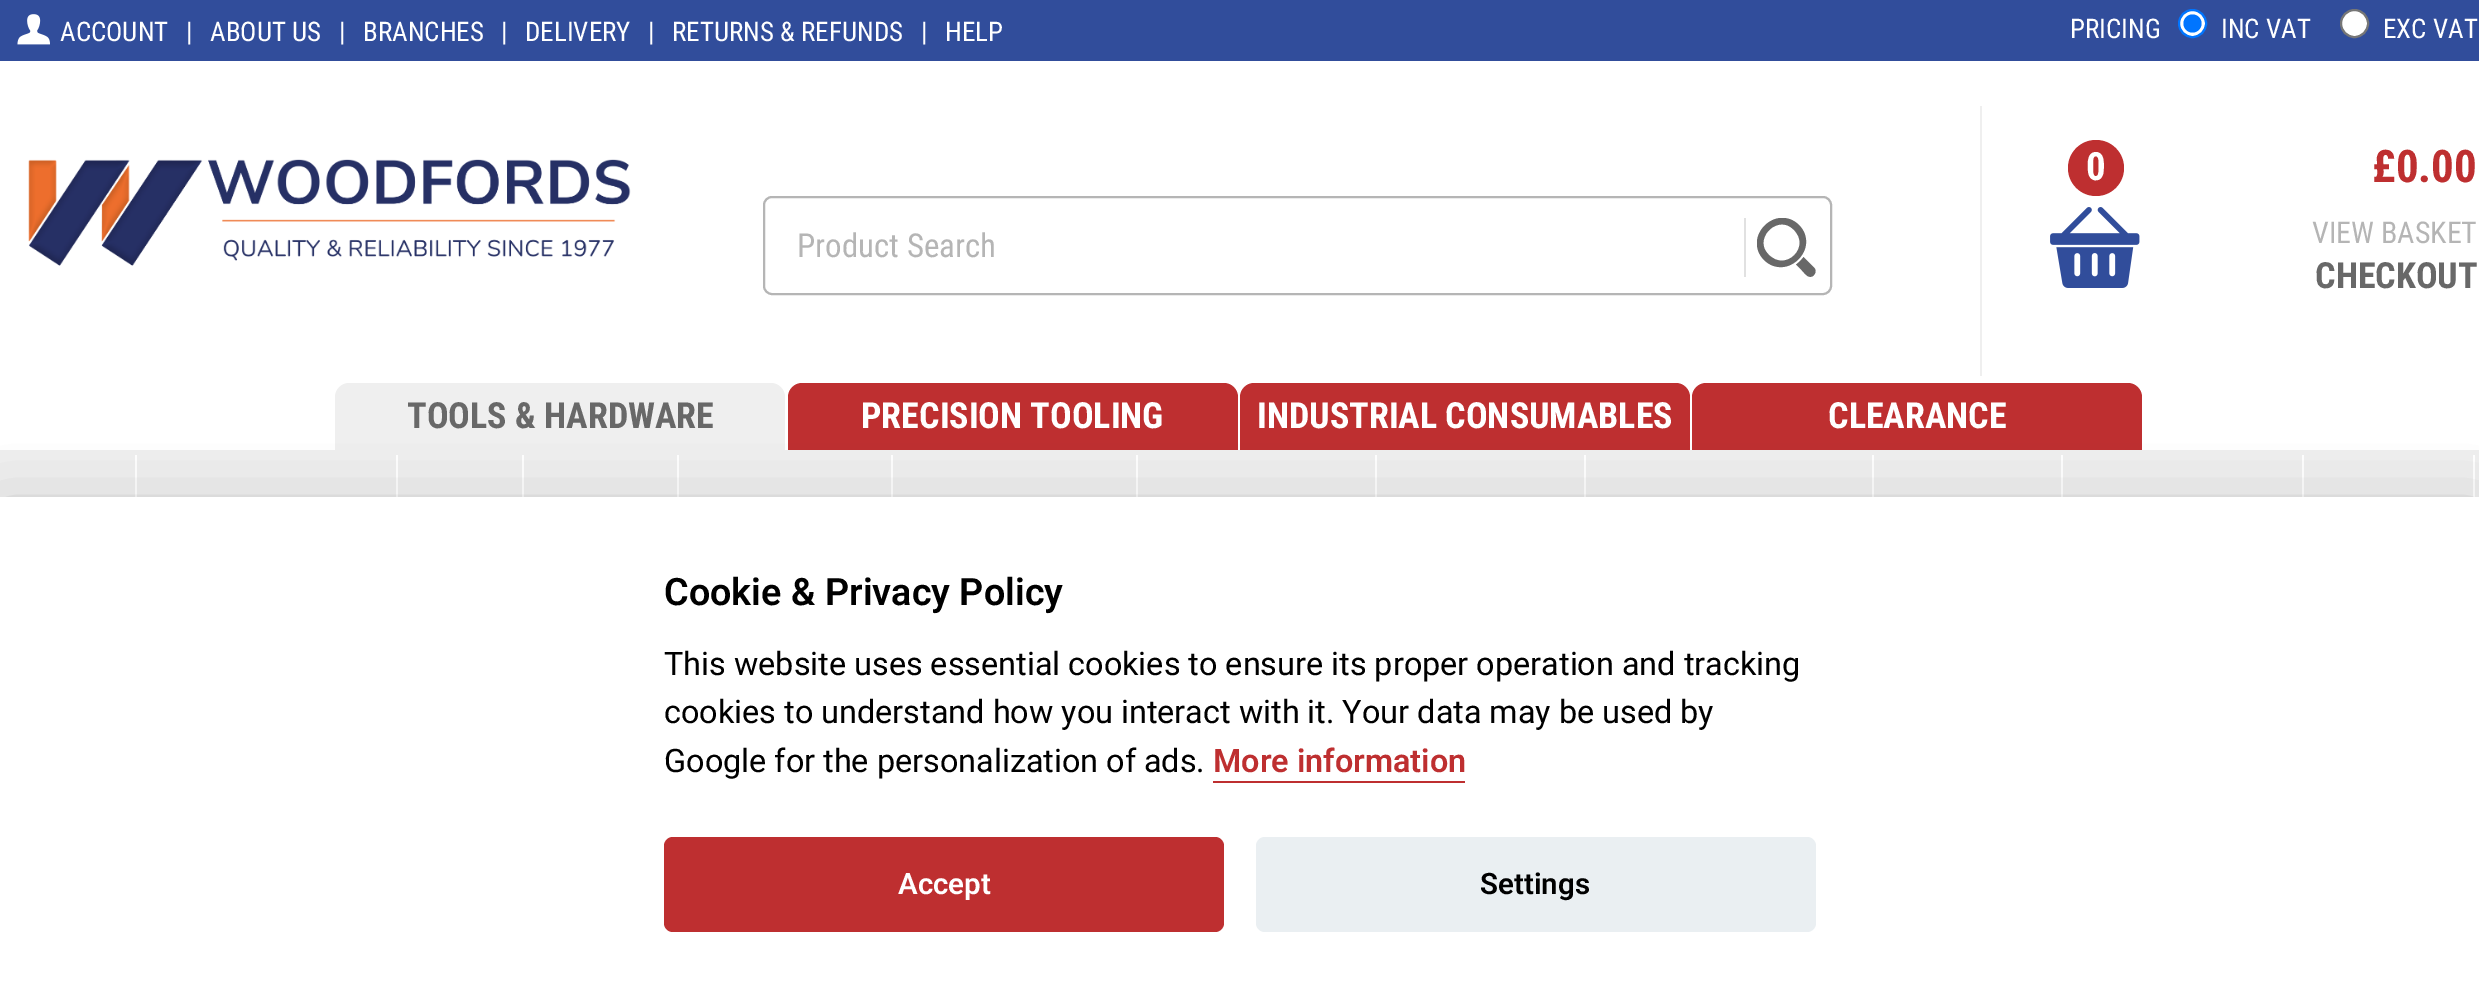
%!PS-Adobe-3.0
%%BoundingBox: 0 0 2479 1003
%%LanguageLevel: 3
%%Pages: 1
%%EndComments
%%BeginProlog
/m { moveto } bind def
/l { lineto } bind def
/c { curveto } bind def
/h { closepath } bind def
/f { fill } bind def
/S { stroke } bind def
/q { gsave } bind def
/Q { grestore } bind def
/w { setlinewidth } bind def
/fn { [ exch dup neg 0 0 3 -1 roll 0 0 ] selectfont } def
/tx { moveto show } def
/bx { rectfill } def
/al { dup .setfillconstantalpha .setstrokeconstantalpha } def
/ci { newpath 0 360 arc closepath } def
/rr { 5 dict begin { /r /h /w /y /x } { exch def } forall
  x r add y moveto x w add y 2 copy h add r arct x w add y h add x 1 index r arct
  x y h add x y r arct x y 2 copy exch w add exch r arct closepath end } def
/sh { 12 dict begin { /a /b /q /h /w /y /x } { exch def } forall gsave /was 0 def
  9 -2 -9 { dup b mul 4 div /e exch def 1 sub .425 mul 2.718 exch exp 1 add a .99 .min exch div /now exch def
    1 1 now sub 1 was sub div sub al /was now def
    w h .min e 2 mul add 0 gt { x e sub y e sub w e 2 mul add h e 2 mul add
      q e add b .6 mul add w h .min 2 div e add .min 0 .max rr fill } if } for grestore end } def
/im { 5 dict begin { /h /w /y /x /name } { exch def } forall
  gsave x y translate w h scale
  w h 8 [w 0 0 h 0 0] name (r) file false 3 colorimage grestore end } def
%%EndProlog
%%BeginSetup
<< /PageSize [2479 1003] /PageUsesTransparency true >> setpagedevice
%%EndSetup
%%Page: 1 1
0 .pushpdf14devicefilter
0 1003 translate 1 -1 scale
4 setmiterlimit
1 setgray
0 0 2479 1003 bx
0.192 0.302 0.608 setrgbcolor
0 0 2479 61 bx
(image0.raw) 17 14 33 31 im
/RobotoCondensed-Regular 27 fn
1 setgray
(ACCOUNT) 60 41 tx
(|) 186 41 tx
(ABOUT US) 210 41 tx
(|) 339 41 tx
(BRANCHES) 363 41 tx
(|) 501 41 tx
(DELIVERY) 525 41 tx
(|) 648 41 tx
(RETURNS & REFUNDS) 672 41 tx
(|) 921 41 tx
(HELP) 945 41 tx
(PRICING) 2070 38 tx
2192.5 23.5 13.5 ci q f Q
0 0.459 1 setrgbcolor
2 w
S
2192.5 23.5 9 ci f
1 setgray
(INC VAT) 2221 38 tx
2354.5 23.5 13.5 ci q f Q
0.463 setgray
S
1 setgray
(EXC VAT) 2383 38 tx
(image1.raw) 28 159 603 107 im
0.71 setgray
764 197 1067 97 8 rr S
/RobotoCondensed-Regular 33 fn
(Product Search) 797 257 tx
0.882 setgray
1744 218 2 59 bx
0.408 setgray
1814 267.5 m 1803.5 257 l 1801.5 260 1799 262.5 1796 264.5 c 1801.5 270 l 1803.5 272 1806 275.5 1808.5 276.5 c 1813.5 278.5 1818 271.5 1814 267.5 c h f
q
1757 218 59 59 rectclip
1799 225 m 1776 203 1742 237 1764 260 c 1787 282 1821 248 1799 225 c h 1769 255 m 1752 239 1778 213 1794 230 c 1811 247 1786 272 1769 255 c h f
Q
0.937 setgray
1980 106 2 270 bx
0.745 0.184 0.188 setrgbcolor
2096 168 28 ci f
/RobotoCondensed-Bold 39 fn
1 setgray
(0) 2086 180 tx
(image2.raw) 2050 207 90 81 im
/RobotoCondensed-Bold 45 fn
0.745 0.184 0.188 setrgbcolor
(£0.00) 2372 182 tx
/RobotoCondensed-Regular 30 fn
0.71 setgray
(VIEW BASKET) 2312 243 tx
/RobotoCondensed-Bold 36 fn
0.408 setgray
(CHECKOUT) 2315 288 tx
0.937 setgray
349 383 m 771 383 l 778.5 383 785 389.5 785 397 c 785 450 l 335 450 l 335 397 l 335 389.5 341.5 383 349 383 c h f
0.408 setgray
(TOOLS & HARDWARE) 407 428 tx
0.745 0.184 0.188 setrgbcolor
802 383 m 1224 383 l 1231.5 383 1238 389.5 1238 397 c 1238 450 l 788 450 l 788 397 l 788 389.5 794.5 383 802 383 c h f
1 setgray
(PRECISION TOOLING) 861 428 tx
0.745 0.184 0.188 setrgbcolor
1254 383 m 1676 383 l 1683.5 383 1690 389.5 1690 397 c 1690 450 l 1240 450 l 1240 397 l 1240 389.5 1246.5 383 1254 383 c h f
1 setgray
(INDUSTRIAL CONSUMABLES) 1257 428 tx
0.745 0.184 0.188 setrgbcolor
1706 383 m 2128 383 l 2135.5 383 2142 389.5 2142 397 c 2142 450 l 1692 450 l 1692 397 l 1692 389.5 1698.5 383 1706 383 c h f
1 setgray
(CLEARANCE) 1828 428 tx
0.937 setgray
0 450 2479 47 bx
1 setgray
135 455 2 42 bx
396 455 2 42 bx
522 455 2 42 bx
677 455 2 42 bx
891 455 2 42 bx
1136 455 2 42 bx
1375 455 2 42 bx
1584 455 2 42 bx
1872 455 2 42 bx
2061 455 2 42 bx
2302 455 2 42 bx
2473 455 2 42 bx
0.008 0.008 0.012 setrgbcolor
0 520 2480 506 0 34 0.28 sh
1 setgray
0 497 2479 506 bx
/Roboto-SemiBold 37.75 fn
0 setgray
(Cookie & Privacy Policy) 664 605 tx
/Roboto-Regular 32.4 fn
(This website uses essential cookies to ensure its proper operation and tracking) 664 675 tx
(cookies to understand how you interact with it. Your data may be used by) 664 723 tx
(Google for the personalization of ads.) 664 772 tx
/Roboto-SemiBold 32.4 fn
0.745 0.184 0.188 setrgbcolor
(More information) 1213 772 tx
1213 781 252 2 bx
664 837 560 95 9 rr f
/Roboto-SemiBold 29.5 fn
1 setgray
(Accept) 898 894 tx
0.918 0.937 0.949 setrgbcolor
1256 837 560 95 9 rr f
0 setgray
(Settings) 1480 894 tx
.poppdf14devicefilter showpage
%%EOF
